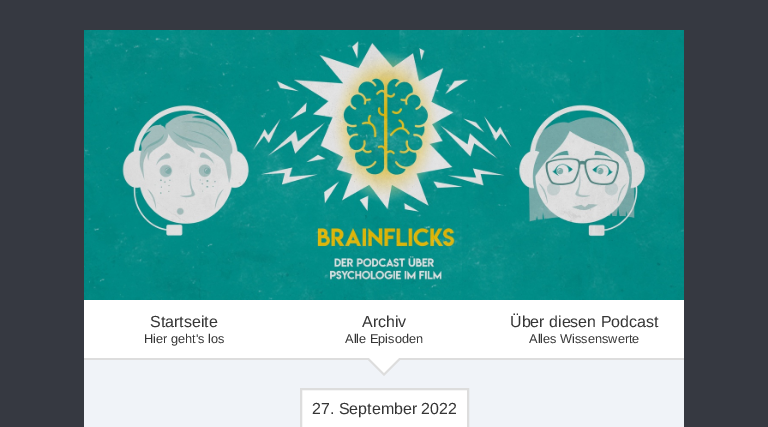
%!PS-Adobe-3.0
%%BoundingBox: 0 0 768 427
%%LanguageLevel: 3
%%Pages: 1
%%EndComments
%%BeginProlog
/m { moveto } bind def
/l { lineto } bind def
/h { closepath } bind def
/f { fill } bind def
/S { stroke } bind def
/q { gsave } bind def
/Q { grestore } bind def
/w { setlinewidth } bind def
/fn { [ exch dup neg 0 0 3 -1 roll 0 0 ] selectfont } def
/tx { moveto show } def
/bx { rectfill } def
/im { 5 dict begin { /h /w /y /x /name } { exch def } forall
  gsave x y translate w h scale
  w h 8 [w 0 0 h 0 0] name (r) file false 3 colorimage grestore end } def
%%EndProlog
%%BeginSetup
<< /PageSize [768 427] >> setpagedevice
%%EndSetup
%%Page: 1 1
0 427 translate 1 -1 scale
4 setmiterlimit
0.212 0.224 0.255 setrgbcolor
0 0 768 427 bx
1 setgray
84 300 600 58 bx
(image0.raw) 84 30 600 270 im
0.867 setgray
84 358 600 2 bx
/LiberationSans-Regular 16 fn
0.212 setgray
(Startseite) 150 327 tx
/LiberationSans-Regular 12.75 fn
(Hier geht's los) 144 343 tx
/LiberationSans-Regular 16 fn
(Archiv) 362 327 tx
/LiberationSans-Regular 12.75 fn
(Alle Episoden) 345 343 tx
/LiberationSans-Regular 16 fn
(Über diesen Podcast) 510 327 tx
/LiberationSans-Regular 12.75 fn
(Alles Wissenswerte) 529 343 tx
0.941 0.953 0.973 setrgbcolor
84 360 600 67 bx
0.867 setgray
366 358 m 402 358 l 384 376 l h f
1 setgray
369 358 m 399 358 l 384 373 l h f
301 389 m 468 389 l 468 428 l 301 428 l h q f Q
0.867 setgray
2 w
S
/LiberationSans-Regular 16 fn
0.212 setgray
(27. September 2022) 312 414 tx
showpage
%%EOF
